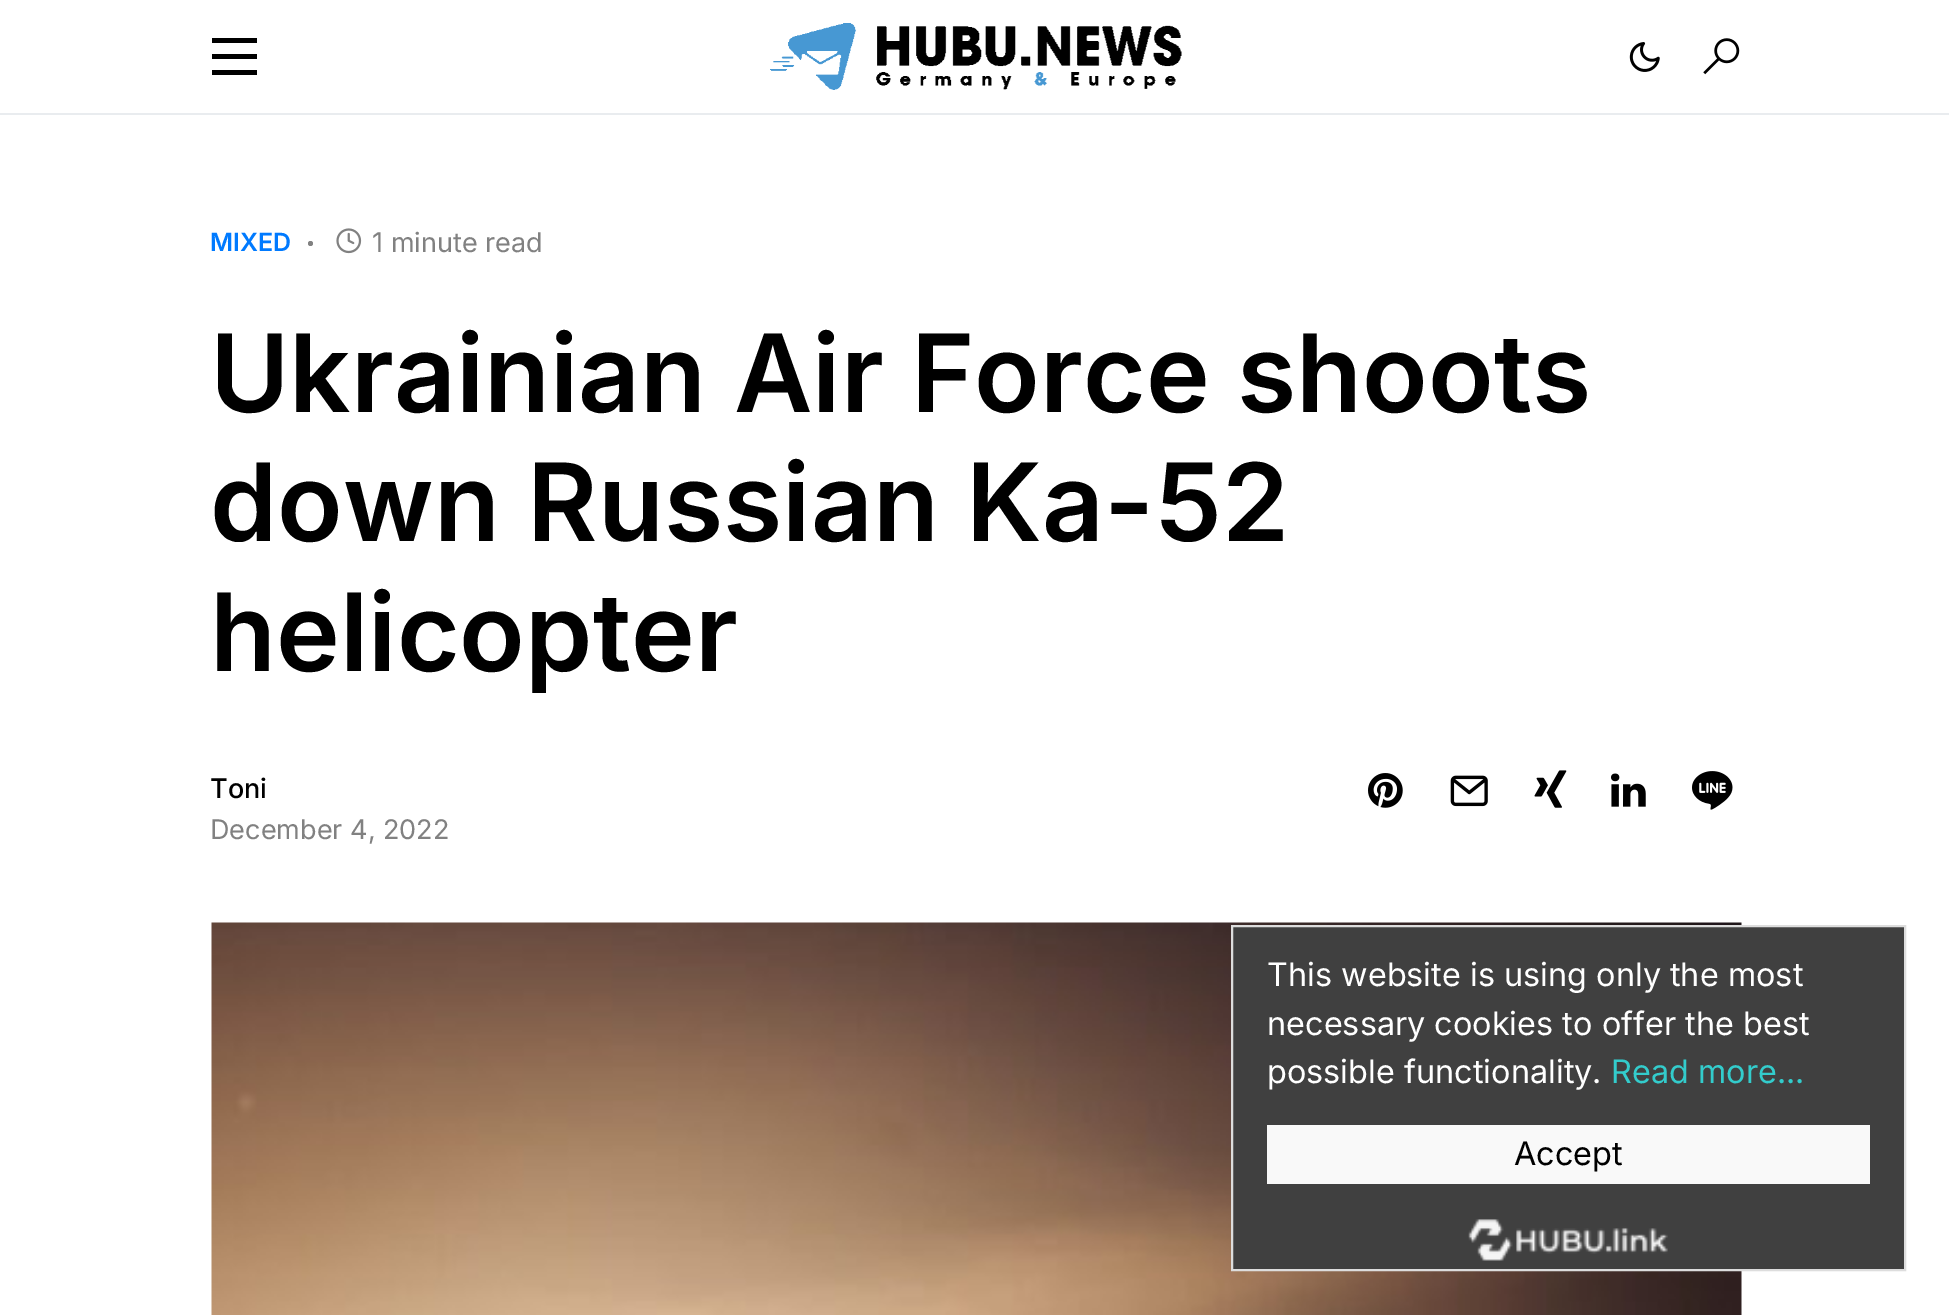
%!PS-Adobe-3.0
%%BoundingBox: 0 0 1949 1315
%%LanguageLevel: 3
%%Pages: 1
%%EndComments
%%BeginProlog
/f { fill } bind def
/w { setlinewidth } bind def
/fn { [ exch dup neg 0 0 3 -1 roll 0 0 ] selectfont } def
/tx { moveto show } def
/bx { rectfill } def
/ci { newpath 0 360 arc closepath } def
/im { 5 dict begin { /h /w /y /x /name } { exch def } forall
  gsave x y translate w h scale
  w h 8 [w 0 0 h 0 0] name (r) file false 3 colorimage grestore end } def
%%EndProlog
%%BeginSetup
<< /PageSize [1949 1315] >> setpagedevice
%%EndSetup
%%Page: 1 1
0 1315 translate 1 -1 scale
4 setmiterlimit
1 setgray
0 0 1949 1315 bx
0.914 0.925 0.937 setrgbcolor
0 113 1949 2 bx
0 setgray
212 38 45 5 bx
212 54 45 5 bx
212 70 45 5 bx
(image0.raw) 770 23 412 67 im
(image1.raw) 1629 42 31 30 im
(image2.raw) 1703 38 37 37 im
/Inter-SemiBold 25 fn
0 0.478 1 setrgbcolor
(MIXED) 210 251 tx
0.506 setgray
310.5 243.5 2.5 ci f
(image3.raw) 336 228 26 26 im
/Inter-Regular 27 fn
(1 minute read) 372 252 tx
/Inter-SemiBold 108 fn
0 setgray
(Ukrainian Air Force shoots) 210 412 tx
(down Russian Ka-52) 210 541 tx
(helicopter) 210 671 tx
/Inter-Medium 27 fn
(Toni) 210 798 tx
/Inter-Regular 27 fn
0.506 setgray
(December 4, 2022) 210 839 tx
(image4.raw) 1368 773 35 35 im
(image5.raw) 1450 775 38 32 im
(image6.raw) 1534 770 33 38 im
(image7.raw) 1611 773 35 34 im
(image8.raw) 1692 771 41 39 im
(image9.raw) 211 922 1531 393 im
0.251 setgray
1233 927 671 342 bx
(image10.raw) 1468 1219 200 42 im
0.867 setgray
2 w
1232 926 673 344 rectstroke
/Inter-Regular 32.4 fn
1 setgray
(This website is using only the most) 1267 986 tx
(necessary cookies to offer the best) 1267 1035 tx
(possible functionality.) 1267 1083 tx
0.2 0.8 0.8 setrgbcolor
(Read more...) 1611 1083 tx
0.976 setgray
1267 1125 603 59 bx
0 setgray
(Accept) 1514 1165 tx
showpage
%%EOF
